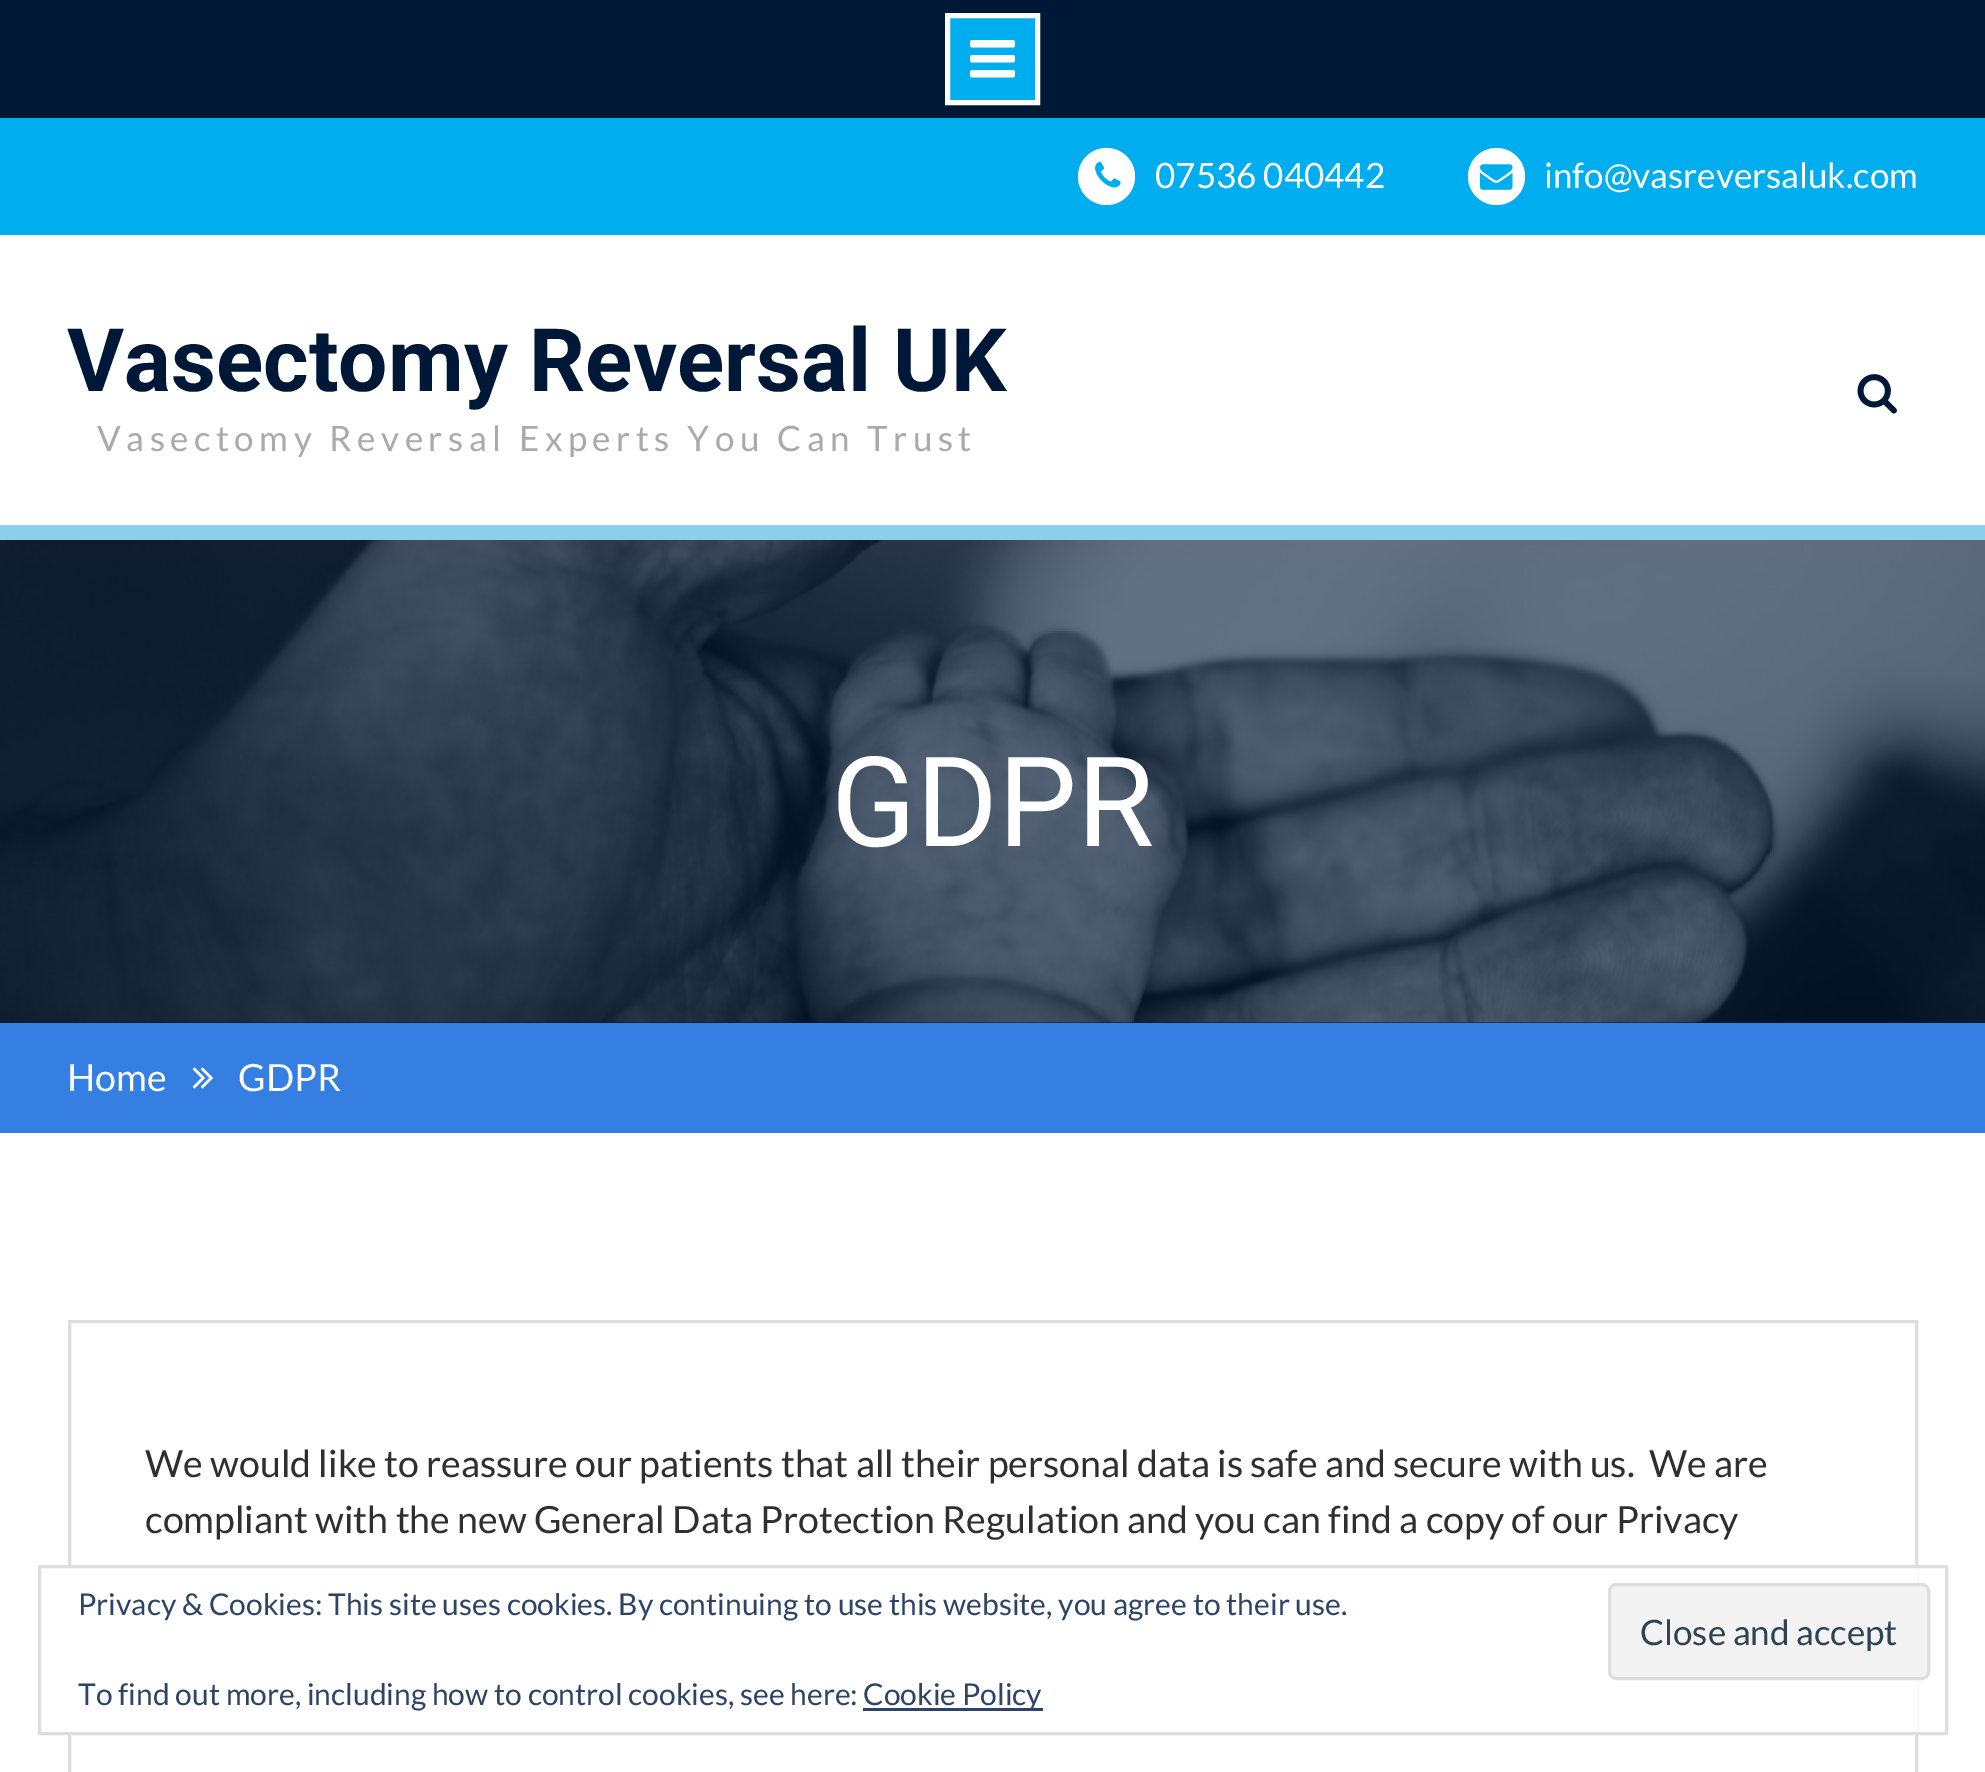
%!PS-Adobe-3.0
%%BoundingBox: 0 0 1985 1772
%%LanguageLevel: 3
%%Pages: 1
%%EndComments
%%BeginProlog
/m { moveto } bind def
/l { lineto } bind def
/h { closepath } bind def
/f { fill } bind def
/S { stroke } bind def
/q { gsave } bind def
/Q { grestore } bind def
/w { setlinewidth } bind def
/fn { [ exch dup neg 0 0 3 -1 roll 0 0 ] selectfont } def
/tx { moveto show } def
/bx { rectfill } def
/ci { newpath 0 360 arc closepath } def
/rr { 5 dict begin { /r /h /w /y /x } { exch def } forall
  x r add y moveto x w add y 2 copy h add r arct x w add y h add x 1 index r arct
  x y h add x y r arct x y 2 copy exch w add exch r arct closepath end } def
/im { 5 dict begin { /h /w /y /x /name } { exch def } forall
  gsave x y translate w h scale
  w h 8 [w 0 0 h 0 0] name (r) file false 3 colorimage grestore end } def
%%EndProlog
%%BeginSetup
<< /PageSize [1985 1772] >> setpagedevice
%%EndSetup
%%Page: 1 1
0 1772 translate 1 -1 scale
4 setmiterlimit
1 setgray
0 0 1985 1772 bx
0 0.094 0.216 setrgbcolor
0 0 1985 118 bx
0 0.682 0.937 setrgbcolor
947.5 15.5 m 1037.5 15.5 l 1037.5 102.5 l 947.5 102.5 l h q f Q
1 1 0.996 setrgbcolor
5 w
S
(image0.raw) 970 40 45 38 im
0 0.682 0.937 setrgbcolor
0 118 1985 117 bx
1 setgray
1106.5 176.5 28.5 ci f
(image1.raw) 1095 162 26 26 im
/Lato-Regular 35 fn
(07536 040442) 1155 188 tx
1496.5 176.5 28.5 ci f
(image2.raw) 1480 164 33 26 im
(info@vasreversaluk.com) 1544 188 tx
0.541 0.816 0.929 setrgbcolor
0 525 1985 15 bx
/Roboto-Bold 87.5 fn
0 0.094 0.216 setrgbcolor
(Vasectomy Reversal UK) 67 391 tx
/Lato-Regular 35 fn
0.667 setgray
97 451 m 5.5 0 (Vasectomy Reversal Experts You Can Trust) ashow
(image3.raw) 1857 374 40 40 im
0 0.086 0.2 setrgbcolor
0 1022 1985 1 bx
(image4.raw) 0 540 1985 483 im
/Roboto-Regular 125 fn
1 setgray
(GDPR) 831 846 tx
0.204 0.498 0.882 setrgbcolor
0 1023 1985 110 bx
/Lato-Regular 37.5 fn
1 setgray
(Home) 67 1091 tx
(image5.raw) 192 1067 21 22 im
(GDPR) 238 1091 tx
0.867 setgray
3 w
69.5 1321.5 1847 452 rectstroke
0.184 setgray
(We would like to reassure our patients that all their personal data is safe and secure with us.  We are) 145 1477 tx
(compliant with the new General Data Protection Regulation and you can find a copy of our Privacy) 145 1533 tx
1 setgray
68 1568 1850 164 bx
0.871 setgray
39.5 1566.5 1907 167 rectstroke
/Lato-Regular 30 fn
0.18 0.267 0.404 setrgbcolor
(Privacy & Cookies: This site uses cookies. By continuing to use this website, you agree to their use.) 78 1615 tx
0.953 setgray
1609.5 1584.5 319 94 6.5 rr q f Q
0.871 setgray
S
/Lato-Regular 35 fn
0.18 0.267 0.325 setrgbcolor
(Close and accept) 1640 1645 tx
/Lato-Regular 30 fn
0.18 0.267 0.404 setrgbcolor
(To find out more, including how to control cookies, see here:) 78 1705 tx
863 1708 180 3 bx
(Cookie Policy) 863 1705 tx
showpage
%%EOF
